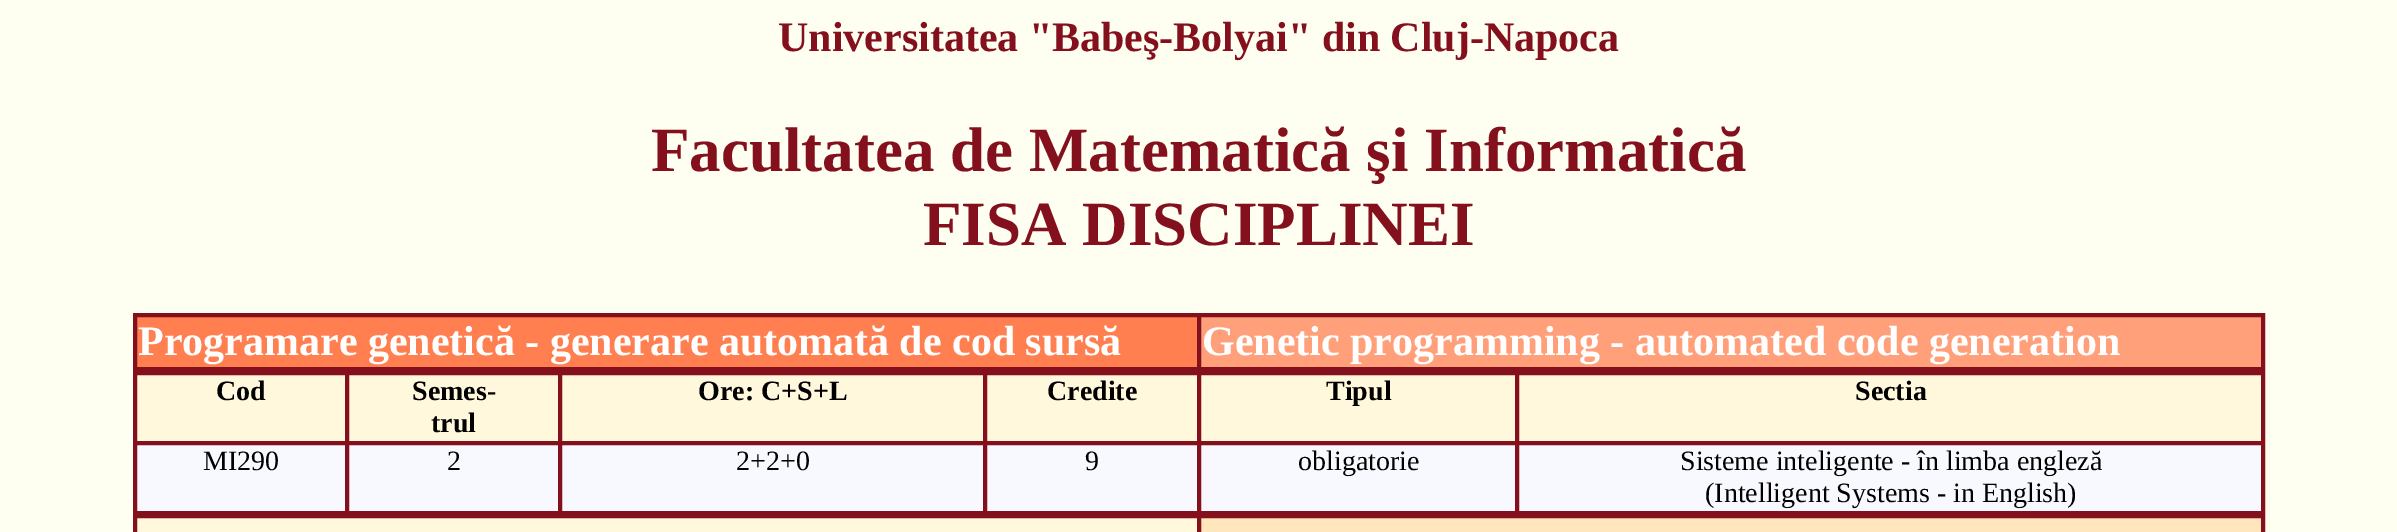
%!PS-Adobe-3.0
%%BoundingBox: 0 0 2397 532
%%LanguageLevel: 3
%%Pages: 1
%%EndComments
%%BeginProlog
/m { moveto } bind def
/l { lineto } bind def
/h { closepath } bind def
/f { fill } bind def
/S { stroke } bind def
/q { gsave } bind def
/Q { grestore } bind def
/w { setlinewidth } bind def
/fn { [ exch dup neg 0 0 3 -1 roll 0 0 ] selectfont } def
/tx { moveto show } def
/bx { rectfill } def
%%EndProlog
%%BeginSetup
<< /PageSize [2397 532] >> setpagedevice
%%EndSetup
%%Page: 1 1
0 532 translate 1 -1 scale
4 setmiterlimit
1 1 0.945 setrgbcolor
0 0 2397 532 bx
/LiberationSerif-Bold 42 fn
0.518 0.063 0.114 setrgbcolor
(Universitatea "Babeş-Bolyai" din Cluj-Napoca) 778 51 tx
/LiberationSerif-Bold 63 fn
(Facultatea de Matematică şi Informatică) 651 171 tx
(FISA DISCIPLINEI) 923 245 tx
2 w
134 314 2130 56 rectstroke
1 0.498 0.314 setrgbcolor
136 316 m 1198 316 l 1198 368 l 136 368 l h q f Q
0.518 0.063 0.114 setrgbcolor
S
/LiberationSerif-Bold 42 fn
1 setgray
(Programare genetică - generare automată de cod sursă) 138 355 tx
1 0.627 0.478 setrgbcolor
1200 316 m 2262 316 l 2262 368 l 1200 368 l h q f Q
0.518 0.063 0.114 setrgbcolor
S
1 setgray
(Genetic programming - automated code generation) 1202 355 tx
0.518 0.063 0.114 setrgbcolor
134 372 2130 142 rectstroke
1 0.973 0.863 setrgbcolor
136 374 m 346 374 l 346 442 l 136 442 l h q f Q
0.518 0.063 0.114 setrgbcolor
S
/LiberationSerif-Bold 28 fn
0 setgray
(Cod) 216 400 tx
1 0.973 0.863 setrgbcolor
348 374 m 559 374 l 559 442 l 348 442 l h q f Q
0.518 0.063 0.114 setrgbcolor
S
0 setgray
(Semes-) 412 400 tx
(trul) 431 432 tx
1 0.973 0.863 setrgbcolor
561 374 m 984 374 l 984 442 l 561 442 l h q f Q
0.518 0.063 0.114 setrgbcolor
S
0 setgray
(Ore: C+S+L) 698 400 tx
1 0.973 0.863 setrgbcolor
986 374 m 1198 374 l 1198 442 l 986 442 l h q f Q
0.518 0.063 0.114 setrgbcolor
S
0 setgray
(Credite) 1047 400 tx
1 0.973 0.863 setrgbcolor
1200 374 m 1516 374 l 1516 442 l 1200 442 l h q f Q
0.518 0.063 0.114 setrgbcolor
S
0 setgray
(Tipul) 1326 400 tx
1 0.973 0.863 setrgbcolor
1518 374 m 2262 374 l 2262 442 l 1518 442 l h q f Q
0.518 0.063 0.114 setrgbcolor
S
0 setgray
(Sectia) 1855 400 tx
0.973 0.973 1 setrgbcolor
136 444 m 346 444 l 346 512 l 136 512 l h q f Q
0.518 0.063 0.114 setrgbcolor
S
/LiberationSerif-Regular 28 fn
0 setgray
(MI290) 203 470 tx
0.973 0.973 1 setrgbcolor
348 444 m 559 444 l 559 512 l 348 512 l h q f Q
0.518 0.063 0.114 setrgbcolor
S
0 setgray
(2) 447 470 tx
0.973 0.973 1 setrgbcolor
561 444 m 984 444 l 984 512 l 561 512 l h q f Q
0.518 0.063 0.114 setrgbcolor
S
0 setgray
(2+2+0) 736 470 tx
0.973 0.973 1 setrgbcolor
986 444 m 1198 444 l 1198 512 l 986 512 l h q f Q
0.518 0.063 0.114 setrgbcolor
S
0 setgray
(9) 1085 470 tx
0.973 0.973 1 setrgbcolor
1200 444 m 1516 444 l 1516 512 l 1200 512 l h q f Q
0.518 0.063 0.114 setrgbcolor
S
0 setgray
(obligatorie) 1298 470 tx
0.973 0.973 1 setrgbcolor
1518 444 m 2262 444 l 2262 512 l 1518 512 l h q f Q
0.518 0.063 0.114 setrgbcolor
S
0 setgray
(Sisteme inteligente - în limba engleză) 1680 470 tx
(\(Intelligent Systems - in English\)) 1705 502 tx
0.518 0.063 0.114 setrgbcolor
134 516 2130 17 rectstroke
1 0.973 0.863 setrgbcolor
136 517 m 1198 517 l 1198 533 l 136 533 l h q f Q
0.518 0.063 0.114 setrgbcolor
S
1 0.902 0.737 setrgbcolor
1200 517 m 2262 517 l 2262 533 l 1200 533 l h q f Q
0.518 0.063 0.114 setrgbcolor
S
showpage
%%EOF
